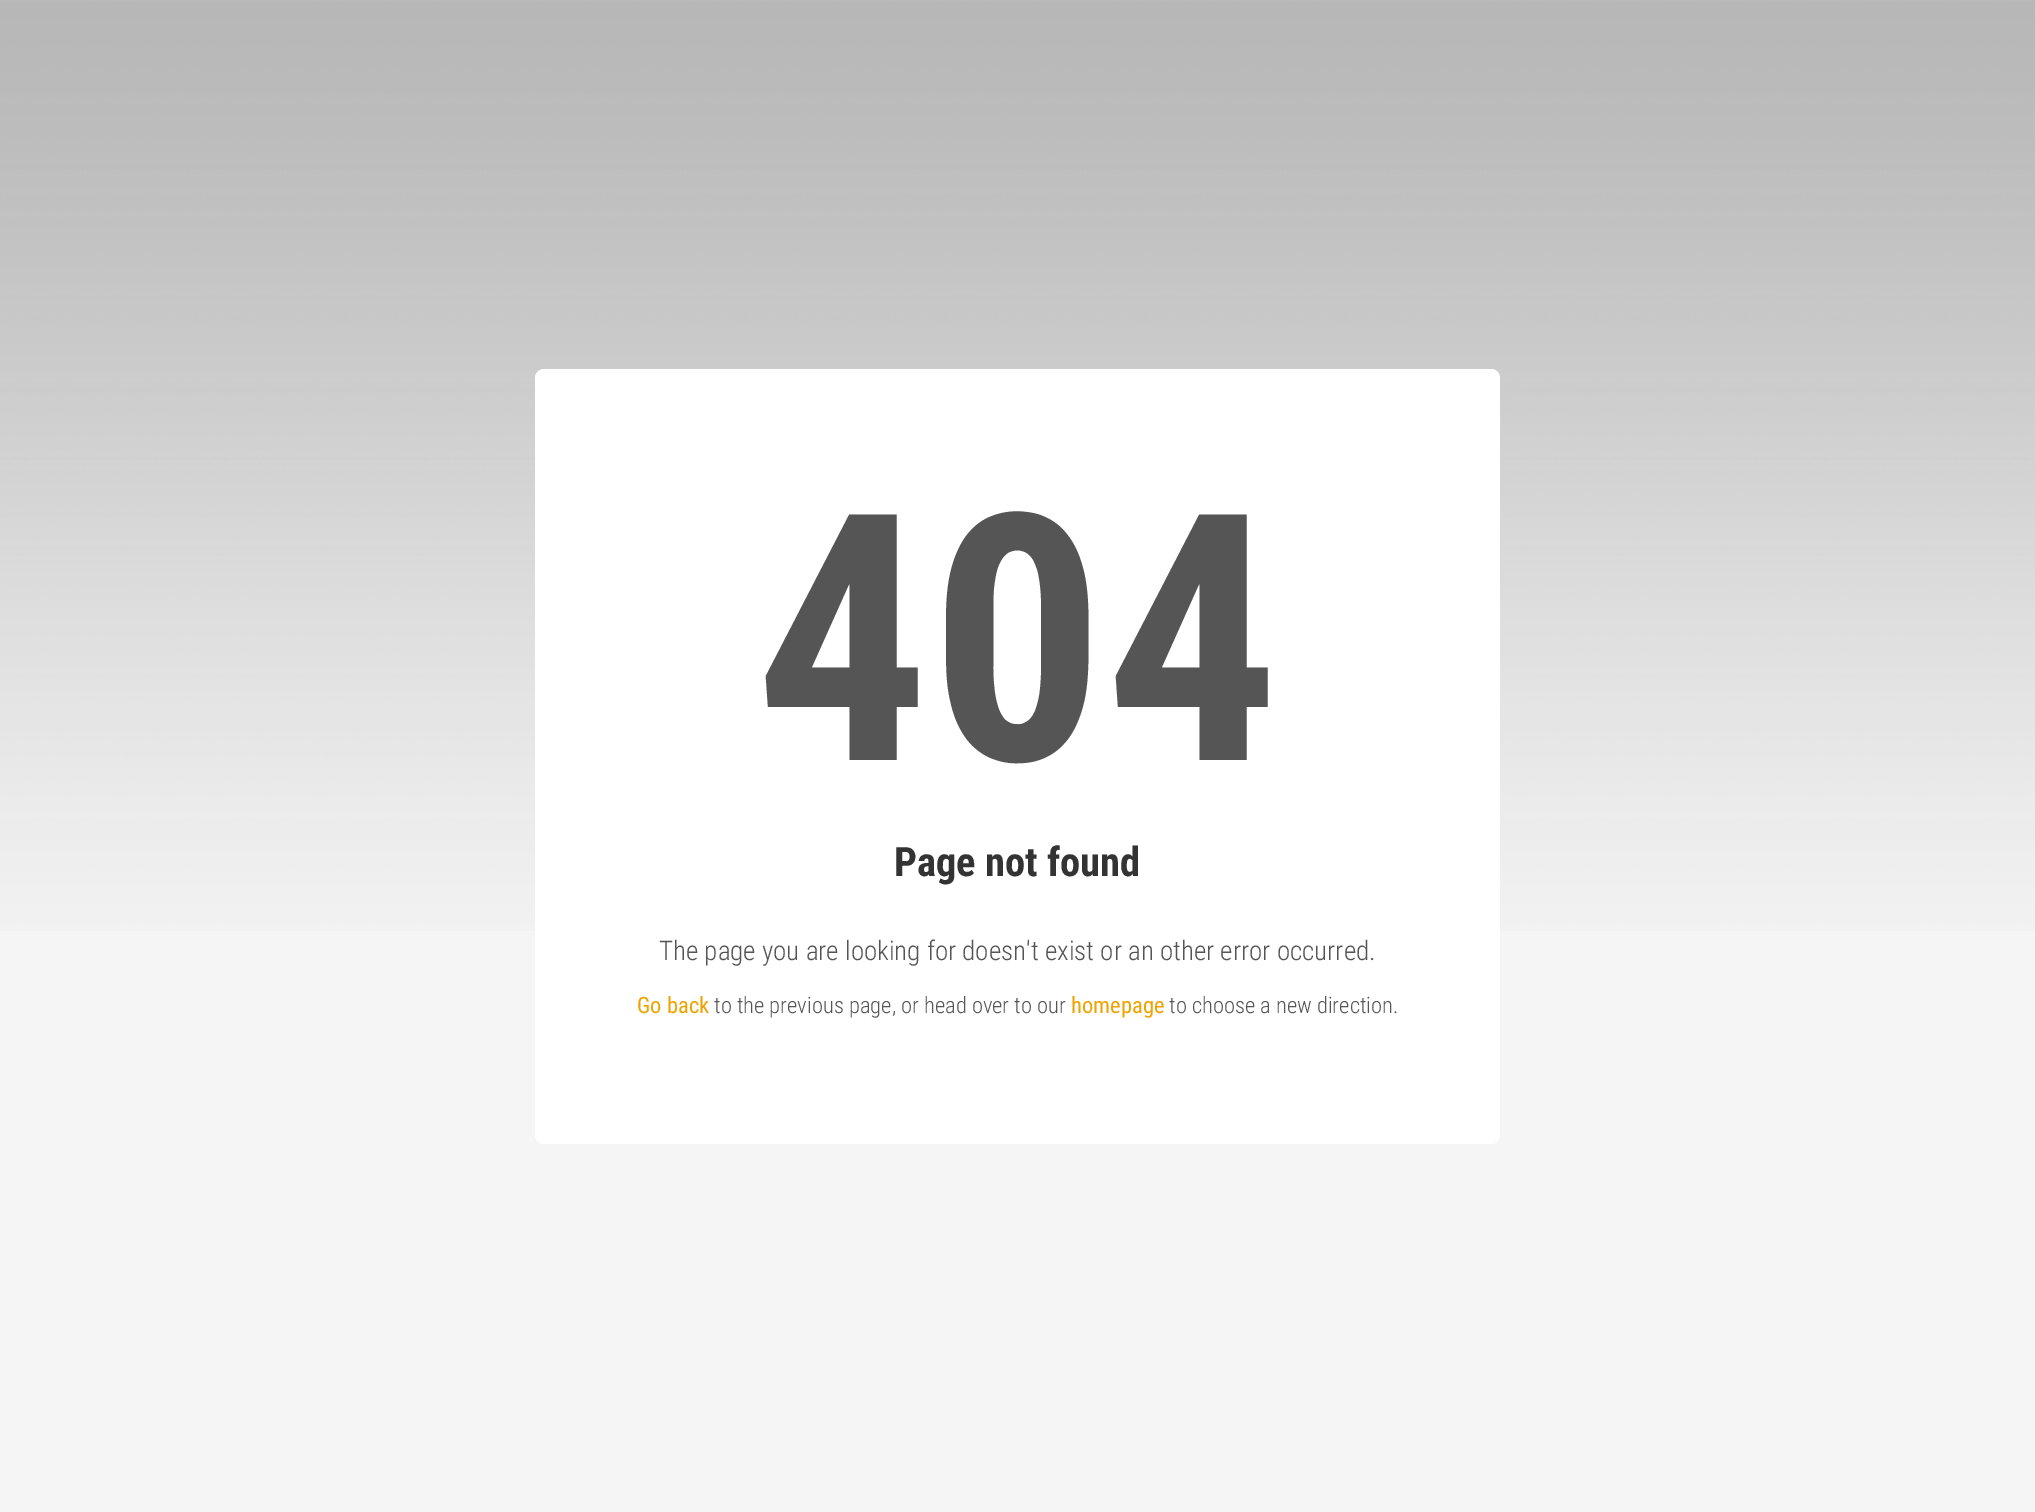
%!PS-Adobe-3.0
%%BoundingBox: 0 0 2035 1512
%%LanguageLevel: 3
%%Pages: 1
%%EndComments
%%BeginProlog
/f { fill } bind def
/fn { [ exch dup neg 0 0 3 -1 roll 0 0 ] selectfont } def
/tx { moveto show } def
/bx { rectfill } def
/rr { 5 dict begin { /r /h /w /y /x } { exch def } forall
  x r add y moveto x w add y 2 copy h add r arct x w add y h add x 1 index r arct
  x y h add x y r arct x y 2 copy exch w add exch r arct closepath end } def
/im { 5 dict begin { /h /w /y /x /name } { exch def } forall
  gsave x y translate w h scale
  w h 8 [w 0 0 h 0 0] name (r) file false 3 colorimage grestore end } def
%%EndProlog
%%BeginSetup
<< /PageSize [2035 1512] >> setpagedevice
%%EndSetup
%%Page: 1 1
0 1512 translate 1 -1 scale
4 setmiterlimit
0.961 setgray
0 0 2035 1512 bx
(image0.raw) 0 0 2035 931 im
1 setgray
535 369 965 775 9 rr f
/RobotoCondensed-Bold 346 fn
0.333 setgray
(404) 755 760 tx
/RobotoCondensed-Bold 40.5 fn
0.2 setgray
(Page not found) 894 876 tx
/RobotoCondensed-Light 27 fn
0.333 setgray
(The page you are looking for doesn't exist or an other error occurred.) 659 960 tx
/RobotoCondensed-Regular 22.5 fn
0.937 0.639 0.004 setrgbcolor
(Go back) 637 1013 tx
/RobotoCondensed-Light 22.5 fn
0.333 setgray
(to the previous page, or head over to our) 714 1013 tx
/RobotoCondensed-Regular 22.5 fn
0.937 0.639 0.004 setrgbcolor
(homepage) 1071 1013 tx
/RobotoCondensed-Light 22.5 fn
0.333 setgray
(to choose a new direction.) 1169 1013 tx
showpage
%%EOF
